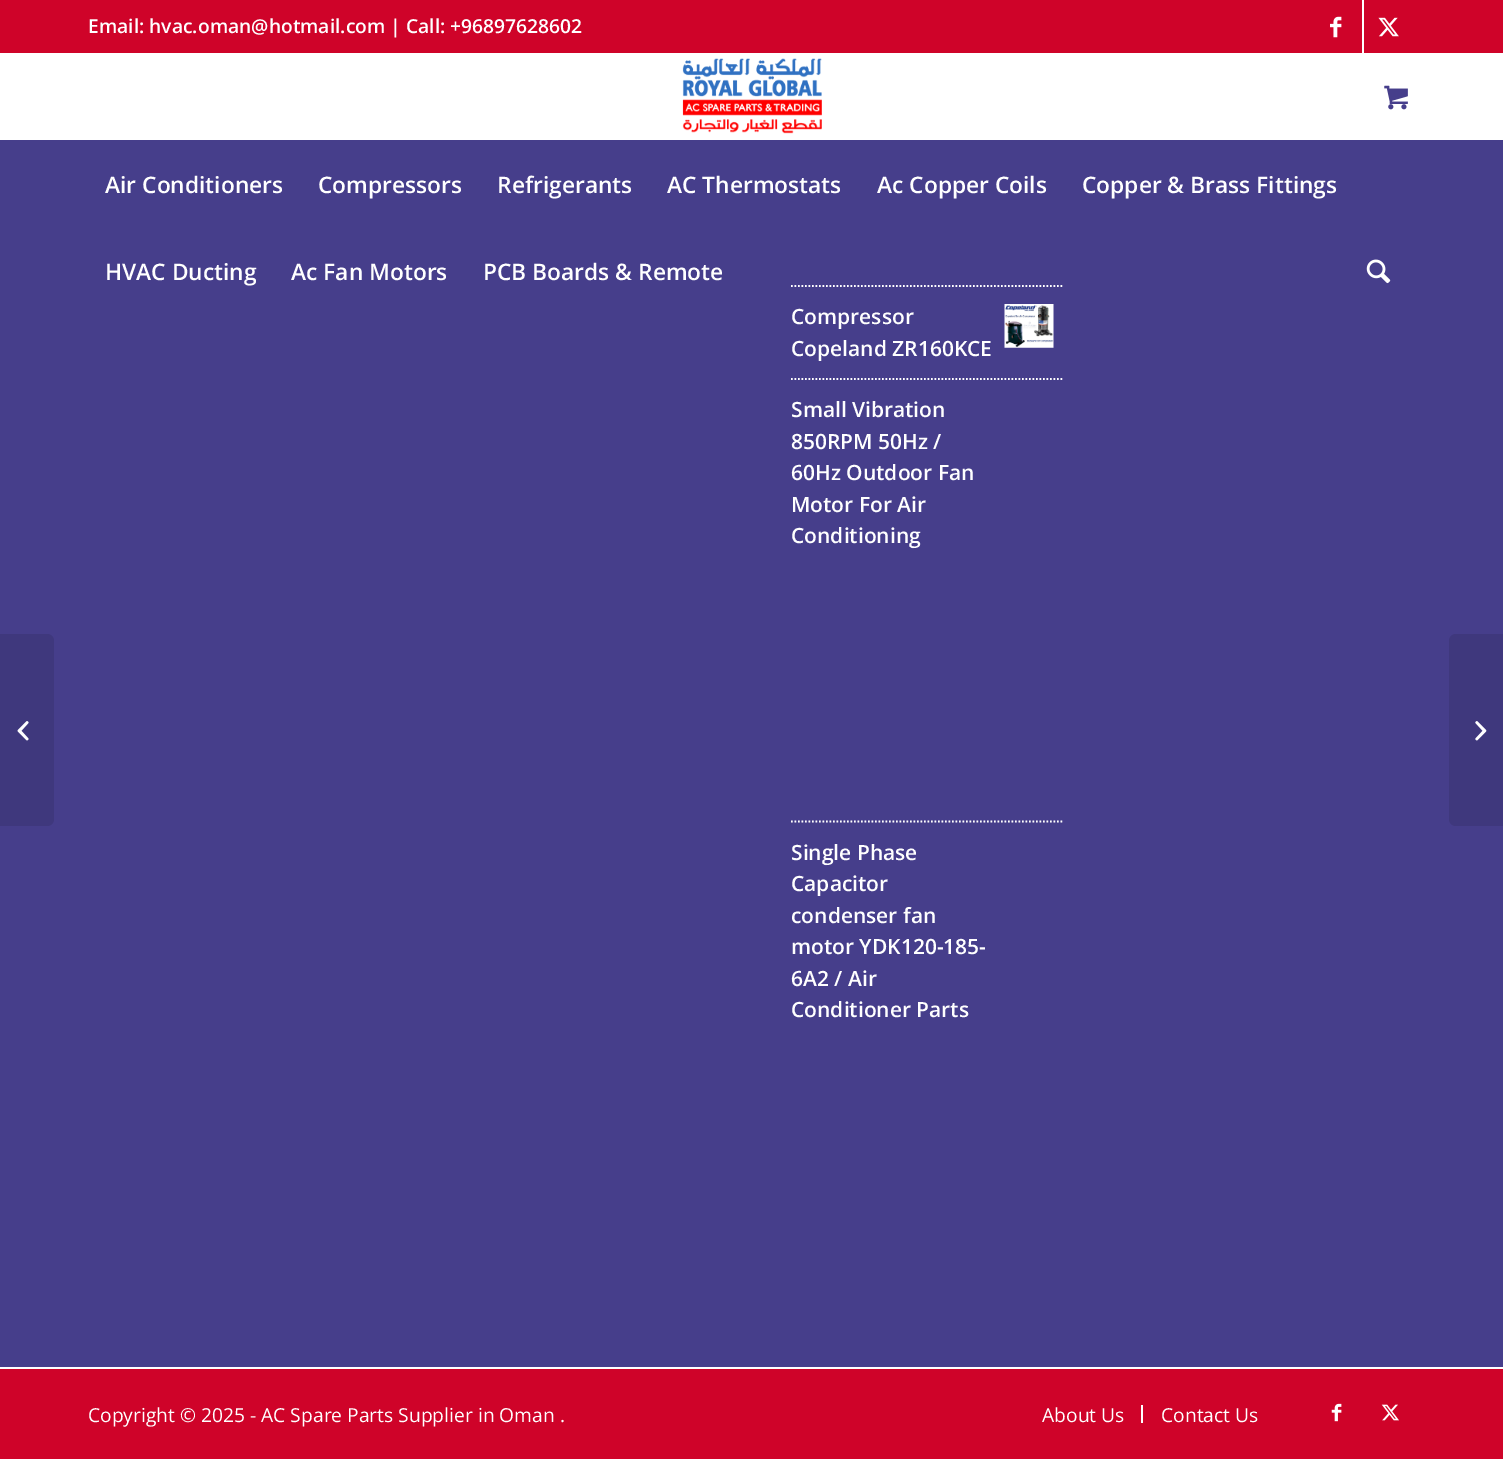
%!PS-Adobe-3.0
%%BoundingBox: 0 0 1503 1459
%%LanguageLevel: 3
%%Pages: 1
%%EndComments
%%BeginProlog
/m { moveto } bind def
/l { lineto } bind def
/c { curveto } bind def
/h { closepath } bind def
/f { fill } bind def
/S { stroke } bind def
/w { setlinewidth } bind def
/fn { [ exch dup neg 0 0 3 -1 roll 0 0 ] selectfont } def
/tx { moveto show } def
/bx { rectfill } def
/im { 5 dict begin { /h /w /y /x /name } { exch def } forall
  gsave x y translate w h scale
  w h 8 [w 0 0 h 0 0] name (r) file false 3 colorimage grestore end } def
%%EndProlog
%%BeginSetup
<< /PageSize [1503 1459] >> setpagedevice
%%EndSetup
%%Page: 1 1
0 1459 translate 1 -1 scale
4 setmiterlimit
0.275 0.243 0.545 setrgbcolor
0 0 1503 1459 bx
0.812 0.012 0.161 setrgbcolor
0 0 1503 53 bx
/OpenSans-SemiBold 19.25 fn
1 setgray
(Email: hvac.oman@hotmail.com | Call: +96897628602) 88 33 tx
1362 0 2 53 bx
(image0.raw) 1330 16 12 22 im
(image1.raw) 1378 17 21 20 im
0 53 1503 87 bx
(image2.raw) 682 58 140 76 im
(image3.raw) 1384 85 24 25 im
/OpenSans-SemiBold 22.75 fn
(Air Conditioners) 105 193 tx
(Compressors) 318 193 tx
(Refrigerants) 497 193 tx
(AC Thermostats) 667 193 tx
(Ac Copper Coils) 877 193 tx
(Copper & Brass Fittings) 1082 193 tx
(HVAC Ducting) 105 280 tx
(Ac Fan Motors) 291 280 tx
(PCB Boards & Remote) 483 280 tx
(image4.raw) 1366 259 25 25 im
0.247 0.22 0.49 setrgbcolor
0 634 m 47 634 l 51 634 54 637 54 641 c 54 819 l 54 823 51 826 47 826 c 0 826 l h f
(image5.raw) 17 721 12 20 im
1 setgray
1.8 w
[1.75 1.75] 0 setdash
791 286 m 1064 286 l S
/OpenSans-SemiBold 21 fn
(Compressor) 791 324 tx
(image6.raw) 1004 304 50 44 im
(Copeland ZR160KCE) 791 356 tx
791 379 m 1064 379 l S
(Small Vibration) 791 417 tx
(850RPM 50Hz /) 791 449 tx
(60Hz Outdoor Fan) 791 480 tx
(Motor For Air) 791 512 tx
(Conditioning) 791 543 tx
791 821.5 m 1064 821.5 l S
(Single Phase) 791 860 tx
(Capacitor) 791 891 tx
(condenser fan) 791 923 tx
(motor YDK120-185-) 791 954 tx
(6A2 / Air) 791 986 tx
(Conditioner Parts) 791 1017 tx
0.812 0.012 0.161 setrgbcolor
0 1369 1503 90 bx
1 setgray
0 1367 1503 2 bx
/OpenSans-Regular 19.25 fn
(Copyright © 2025 - AC Spare Parts Supplier in Oman .) 88 1422 tx
(About Us) 1042 1422 tx
1141 1405 2 18 bx
(Contact Us) 1161 1422 tx
(image7.raw) 1331 1403 11 19 im
(image8.raw) 1381 1404 18 17 im
0.247 0.22 0.49 setrgbcolor
1456 634 m 1503 634 l 1503 826 l 1456 826 l 1452 826 1449 823 1449 819 c 1449 641 l 1449 637 1452 634 1456 634 c h f
(image9.raw) 1475 721 12 20 im
showpage
%%EOF
